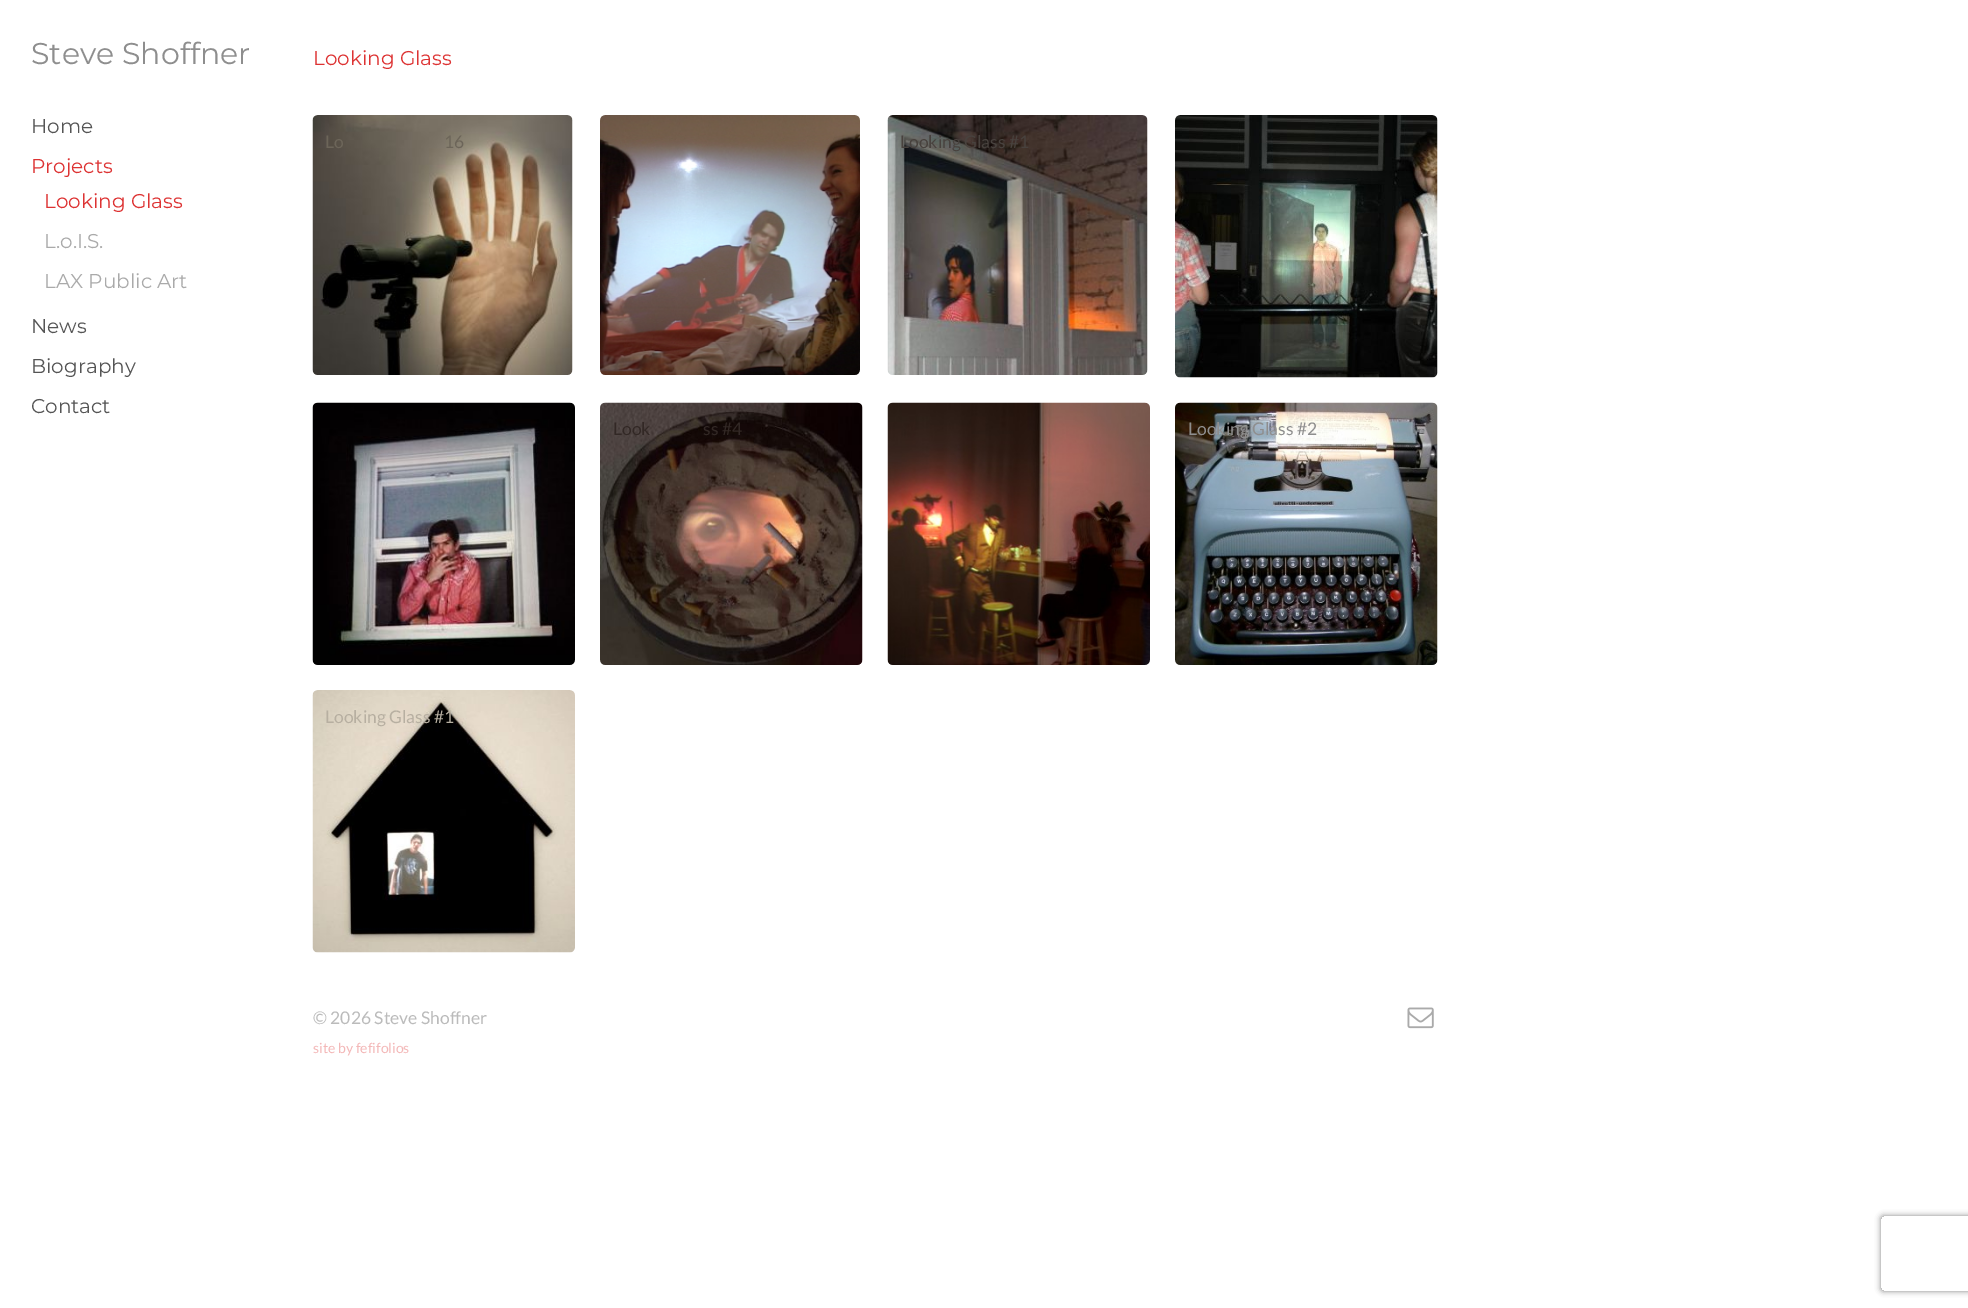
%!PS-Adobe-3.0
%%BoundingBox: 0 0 1968 1308
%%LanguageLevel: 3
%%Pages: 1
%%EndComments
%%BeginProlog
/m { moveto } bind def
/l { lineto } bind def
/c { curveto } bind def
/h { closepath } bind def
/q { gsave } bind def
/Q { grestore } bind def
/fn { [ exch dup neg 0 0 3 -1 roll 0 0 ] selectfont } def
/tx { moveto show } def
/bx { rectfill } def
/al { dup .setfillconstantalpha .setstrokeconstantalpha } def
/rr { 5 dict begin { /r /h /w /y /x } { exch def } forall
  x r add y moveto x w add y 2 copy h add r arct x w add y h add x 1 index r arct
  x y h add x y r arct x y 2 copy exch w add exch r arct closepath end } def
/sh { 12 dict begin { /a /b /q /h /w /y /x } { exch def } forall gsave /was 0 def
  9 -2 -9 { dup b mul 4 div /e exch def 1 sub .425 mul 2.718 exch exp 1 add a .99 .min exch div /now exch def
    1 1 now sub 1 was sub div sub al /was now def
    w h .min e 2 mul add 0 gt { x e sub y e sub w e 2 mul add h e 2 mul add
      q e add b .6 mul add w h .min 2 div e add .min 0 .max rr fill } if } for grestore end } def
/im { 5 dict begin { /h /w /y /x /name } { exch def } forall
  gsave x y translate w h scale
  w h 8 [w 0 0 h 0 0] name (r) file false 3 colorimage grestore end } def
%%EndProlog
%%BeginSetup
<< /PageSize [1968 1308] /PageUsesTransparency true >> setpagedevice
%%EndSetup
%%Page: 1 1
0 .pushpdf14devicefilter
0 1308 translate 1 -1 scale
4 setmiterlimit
1 setgray
0 0 1968 1308 bx
/Montserrat-Thin 30 fn
0.557 setgray
(Steve Shoffner) 31 64 tx
/Montserrat-Thin 20 fn
0.333 setgray
(Home) 31 133 tx
0.867 0.2 0.2 setrgbcolor
(Projects) 31 173 tx
(Looking Glass) 44 208 tx
0.667 setgray
(L.o.I.S.) 44 248 tx
(LAX Public Art) 44 288 tx
0.333 setgray
(News) 31 333 tx
(Biography) 31 373 tx
(Contact) 31 413 tx
0.867 0.2 0.2 setrgbcolor
(Looking Glass) 313 65 tx
(image0.raw) 312 115 261 260 im
/Lato-Regular 17.5 fn
0.424 0.396 0.349 setrgbcolor
(Lo) 325 148 tx
(16) 444 148 tx
(image1.raw) 600 115 260 260 im
(image2.raw) 887 115 261 260 im
0.282 0.259 0.243 setrgbcolor
(Looking Glass #1) 900 148 tx
(image3.raw) 1175 115 263 263 im
(image4.raw) 312 402 263 263 im
(image5.raw) 600 402 263 263 im
0.196 0.157 0.145 setrgbcolor
(Look) 613 435 tx
(ss #4) 703 435 tx
(image6.raw) 887 402 263 263 im
(image7.raw) 1175 402 263 263 im
0.557 setgray
(Looking Glass #2) 1188 435 tx
(image8.raw) 312 690 263 263 im
0.718 0.686 0.631 setrgbcolor
(Looking Glass #1) 325 723 tx
0.733 setgray
(© 2026 Steve Shoffner) 313 1024 tx
(image9.raw) 1407 1007 27 22 im
/Lato-Regular 14 fn
0.953 0.722 0.722 setrgbcolor
(site by fefifolios) 313 1053 tx
q
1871 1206 m 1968 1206 l 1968 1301 l 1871 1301 l h 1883.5 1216 m 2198.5 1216 l 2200 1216 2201 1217 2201 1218.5 c 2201 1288.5 l 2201 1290 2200 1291 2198.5 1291 c 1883.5 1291 l 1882 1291 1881 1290 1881 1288.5 c 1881 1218.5 l 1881 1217 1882 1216 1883.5 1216 c h eoclip newpath
0.502 setgray
1881 1216 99 75 2.5 3 1 sh
Q
.poppdf14devicefilter showpage
%%EOF
